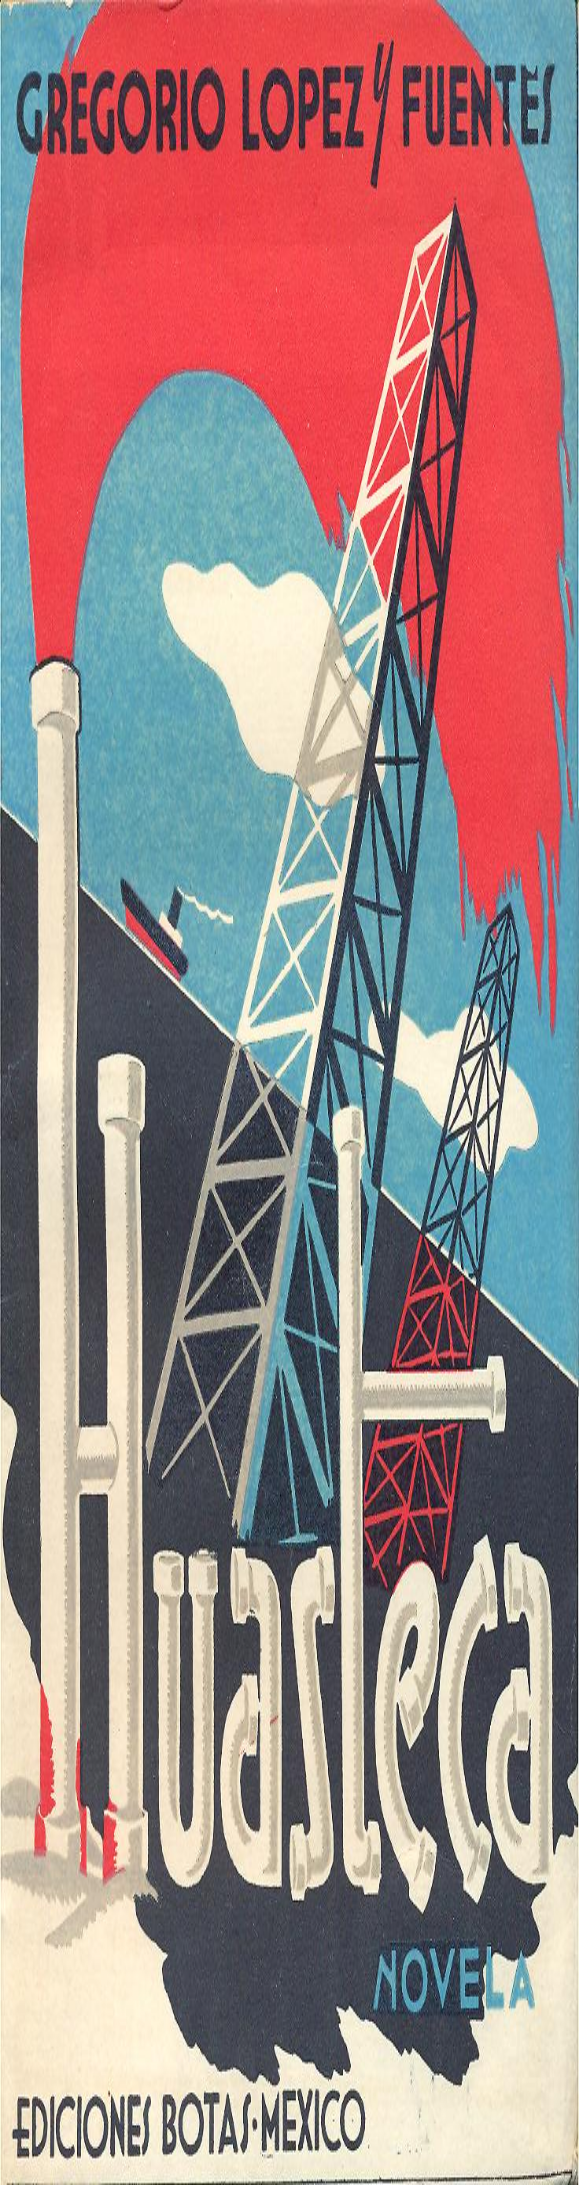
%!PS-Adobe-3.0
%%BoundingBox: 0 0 579 2185
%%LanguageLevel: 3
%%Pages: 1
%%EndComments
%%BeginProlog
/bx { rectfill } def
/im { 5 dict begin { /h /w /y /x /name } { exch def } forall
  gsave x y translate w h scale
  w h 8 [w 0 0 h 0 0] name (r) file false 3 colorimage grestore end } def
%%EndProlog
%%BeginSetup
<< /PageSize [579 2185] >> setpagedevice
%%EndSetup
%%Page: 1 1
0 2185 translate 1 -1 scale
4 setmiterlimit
1 setgray
0 0 579 2185 bx
(image0.raw) 0 0 579 2185 im
showpage
%%EOF
